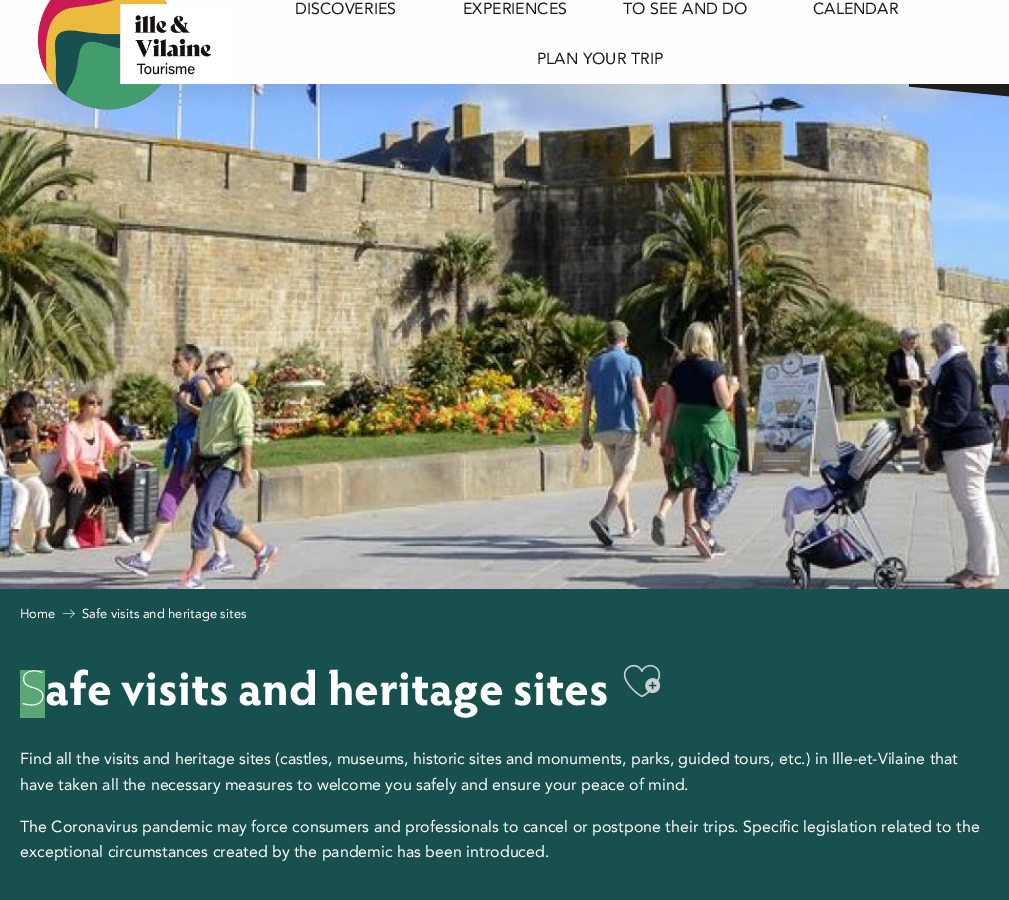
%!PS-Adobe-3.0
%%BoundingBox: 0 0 1009 900
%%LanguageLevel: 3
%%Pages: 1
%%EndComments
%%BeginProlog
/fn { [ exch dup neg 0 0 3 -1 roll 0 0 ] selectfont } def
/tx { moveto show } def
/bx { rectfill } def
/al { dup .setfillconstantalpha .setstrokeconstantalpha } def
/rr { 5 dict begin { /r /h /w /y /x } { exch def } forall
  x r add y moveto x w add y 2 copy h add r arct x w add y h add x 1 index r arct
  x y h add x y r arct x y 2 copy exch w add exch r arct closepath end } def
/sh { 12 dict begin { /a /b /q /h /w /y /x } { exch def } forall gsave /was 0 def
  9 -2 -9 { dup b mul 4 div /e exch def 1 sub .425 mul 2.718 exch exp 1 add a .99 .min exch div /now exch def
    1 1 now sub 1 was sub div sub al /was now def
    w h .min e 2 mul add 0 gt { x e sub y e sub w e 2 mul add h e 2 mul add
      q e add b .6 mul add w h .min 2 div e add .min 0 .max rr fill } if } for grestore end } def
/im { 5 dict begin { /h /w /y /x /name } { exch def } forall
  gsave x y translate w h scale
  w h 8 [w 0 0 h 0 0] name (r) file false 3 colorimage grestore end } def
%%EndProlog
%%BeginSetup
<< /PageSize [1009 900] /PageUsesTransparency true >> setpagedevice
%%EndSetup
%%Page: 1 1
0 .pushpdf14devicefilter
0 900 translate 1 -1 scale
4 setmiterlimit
1 setgray
0 0 1009 900 bx
(image3.raw) 0 84 1009 505 im
(image2.raw) 909 84 100 13 im
0.102 0.09 0.106 setrgbcolor
0 -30 1009 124 0 10 0.1 sh
0.996 setgray
0 0 1009 84 bx
(image0.raw) 38 0 194 110 im
(image1.raw) 38 0 194 110 im
/Avenir-Regular 16 fn
0.102 0.09 0.106 setrgbcolor
(DISCOVERIES) 295 14 tx
(EXPERIENCES) 463 14 tx
(TO SEE AND DO) 623 14 tx
(CALENDAR) 813 14 tx
(PLAN YOUR TRIP) 537 64 tx
0.094 0.314 0.314 setrgbcolor
0 589 1009 311 bx
/Avenir-Regular 13 fn
0.996 setgray
(Home) 20 618 tx
(image4.raw) 62 609 13 9 im
(Safe visits and heritage sites) 82 618 tx
0.345 0.655 0.455 setrgbcolor
20 670 25 48 bx
/NotoSans-Thin 48 fn
0.996 setgray
(S) 20 705 tx
/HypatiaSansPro-Bold 48 fn
(afe visits and heritage sites) 45 705 tx
(image5.raw) 623 664 38 34 im
/Avenir-Regular 16 fn
(Find all the visits and heritage sites \(castles, museums, historic sites and monuments, parks, guided tours, etc.\) in Ille-et-Vilaine that) 20 764 tx
(have taken all the necessary measures to welcome you safely and ensure your peace of mind.) 20 790 tx
(The Coronavirus pandemic may force consumers and professionals to cancel or postpone their trips. Specific legislation related to the) 20 832 tx
(exceptional circumstances created by the pandemic has been introduced.) 20 857 tx
.poppdf14devicefilter showpage
%%EOF
